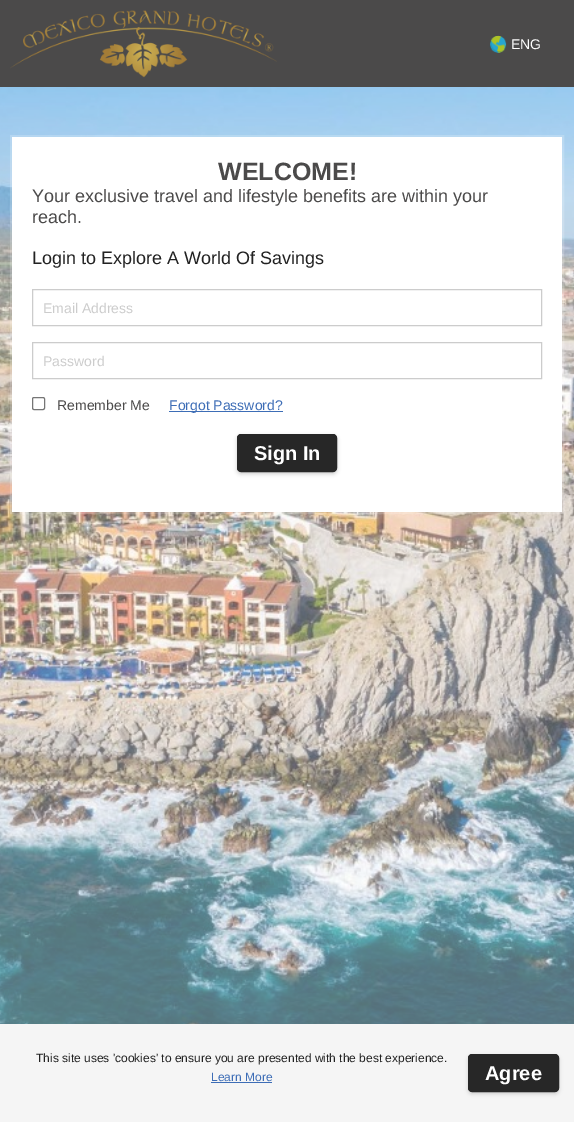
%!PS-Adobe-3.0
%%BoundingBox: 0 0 574 1122
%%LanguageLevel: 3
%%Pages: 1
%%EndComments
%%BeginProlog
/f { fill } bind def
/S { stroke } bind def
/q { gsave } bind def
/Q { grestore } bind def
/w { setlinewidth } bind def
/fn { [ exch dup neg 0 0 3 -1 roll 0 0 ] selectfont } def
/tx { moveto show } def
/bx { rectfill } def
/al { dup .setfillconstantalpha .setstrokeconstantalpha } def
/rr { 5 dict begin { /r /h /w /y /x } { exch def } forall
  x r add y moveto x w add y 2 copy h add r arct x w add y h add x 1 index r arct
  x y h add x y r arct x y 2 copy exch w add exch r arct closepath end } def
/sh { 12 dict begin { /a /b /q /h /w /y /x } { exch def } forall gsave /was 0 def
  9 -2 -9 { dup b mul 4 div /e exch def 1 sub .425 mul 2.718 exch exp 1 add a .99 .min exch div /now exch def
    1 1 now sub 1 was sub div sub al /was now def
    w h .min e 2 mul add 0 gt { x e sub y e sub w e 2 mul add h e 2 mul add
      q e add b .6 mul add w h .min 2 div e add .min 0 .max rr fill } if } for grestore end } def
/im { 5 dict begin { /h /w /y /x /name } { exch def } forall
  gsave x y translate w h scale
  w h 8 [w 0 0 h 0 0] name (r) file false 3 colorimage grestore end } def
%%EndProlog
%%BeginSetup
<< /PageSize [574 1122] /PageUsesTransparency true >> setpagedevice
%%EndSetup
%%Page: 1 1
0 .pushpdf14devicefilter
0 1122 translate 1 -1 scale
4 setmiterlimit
1 setgray
0 0 574 1122 bx
0.294 0.29 0.29 setrgbcolor
0 0 574 87 bx
(image0.raw) 10 10 267 68 im
(image1.raw) 489 35 18 18 im
/LiberationSans-Regular 14 fn
1 setgray
(ENG) 511 49 tx
(image2.raw) 0 87 574 937 im
0.2 al
2 w
11 136 552 377 rectstroke
1 al
12 137 550 375 bx
/LiberationSans-Bold 25 fn
0.294 0.29 0.29 setrgbcolor
(WELCOME!) 218 180 tx
/LiberationSans-Regular 18 fn
(Your exclusive travel and lifestyle benefits are within your) 32 202 tx
(reach.) 32 223 tx
0.133 setgray
(Login to Explore A World Of Savings) 32 264 tx
0.8 setgray
1 w
32.5 289.5 509 36 rectstroke
/LiberationSans-Regular 14 fn
(Email Address) 43 313 tx
32.5 342.5 509 36 rectstroke
(Password) 43 366 tx
0.463 setgray
32.5 397.5 12 12 1.5 rr S
0.294 0.29 0.29 setrgbcolor
(Remember Me) 57 410 tx
0.239 0.427 0.714 setrgbcolor
169 411 114 1 bx
(Forgot Password?) 169 410 tx
0.8 setgray
237 436 100 38 4 2 1 sh
0.153 setgray
237.5 434.5 99 37 3.5 rr q f Q
S
/LiberationSans-Bold 20 fn
1 setgray
(Sign In) 254 460 tx
0.961 setgray
0 1024 574 98 bx
/LiberationSans-Regular 12 fn
0.133 setgray
(This site uses 'cookies' to ensure you are presented with the best experience.) 36 1062 tx
0.239 0.427 0.714 setrgbcolor
(Learn More) 211 1081 tx
211 1082 61 1 bx
0.8 setgray
468 1056 91 38 4 2 1 sh
0.153 setgray
468.5 1054.5 90 37 3.5 rr q f Q
S
/LiberationSans-Bold 20 fn
1 setgray
(Agree) 485 1080 tx
.poppdf14devicefilter showpage
%%EOF
